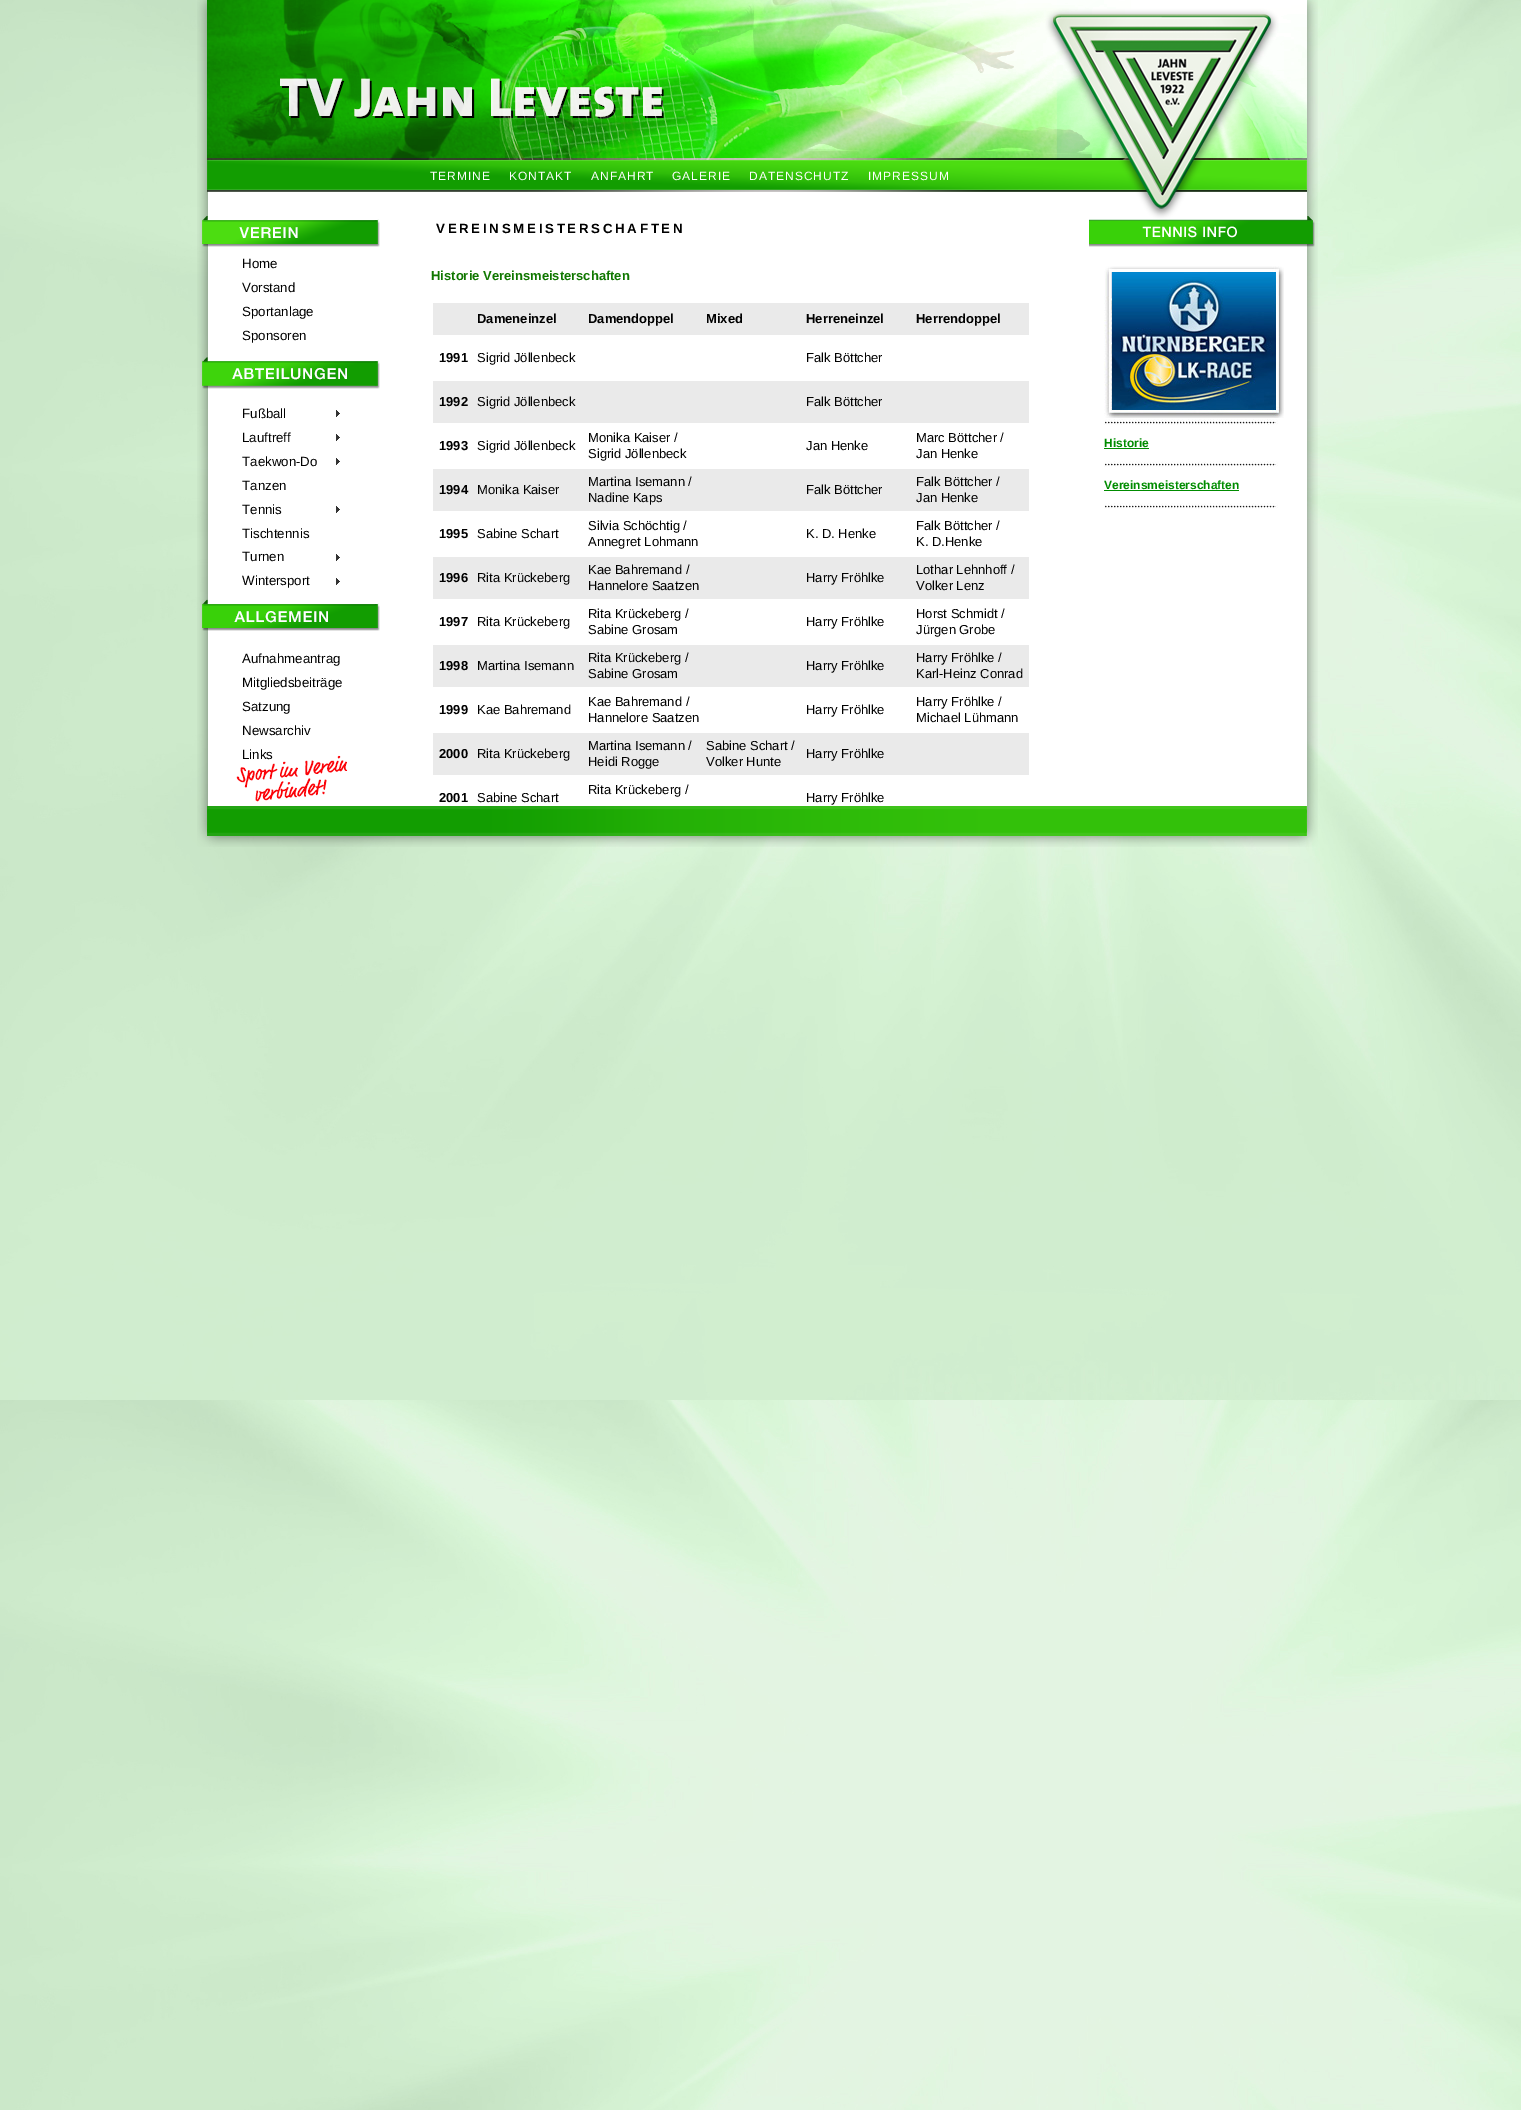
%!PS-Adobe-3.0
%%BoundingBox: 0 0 1521 2110
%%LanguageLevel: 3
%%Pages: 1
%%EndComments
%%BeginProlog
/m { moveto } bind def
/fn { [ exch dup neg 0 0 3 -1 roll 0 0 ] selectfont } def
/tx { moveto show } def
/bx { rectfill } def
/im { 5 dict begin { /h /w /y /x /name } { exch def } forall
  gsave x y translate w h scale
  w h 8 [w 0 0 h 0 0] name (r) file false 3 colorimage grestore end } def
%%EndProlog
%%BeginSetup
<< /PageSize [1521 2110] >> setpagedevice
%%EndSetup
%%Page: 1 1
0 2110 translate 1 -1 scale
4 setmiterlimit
1 setgray
0 0 1521 2110 bx
(image0.raw) 0 0 1521 2110 im
(image1.raw) 197 0 1121 847 im
/LiberationSans-Regular 12 fn
430 180 m 1 0 (TERMINE) ashow
509 180 m 1 0 (KONTAKT) ashow
591 180 m 1 0 (ANFAHRT) ashow
672 180 m 1 0 (GALERIE) ashow
749 180 m 1 0 (DATENSCHUTZ) ashow
868 180 m 1 0 (IMPRESSUM) ashow
/LiberationSans-Bold 13.3 fn
0 setgray
436 233 m 2.7 0 (VEREINSMEISTERSCHAFTEN) ashow
(image2.raw) 1089 216 226 31 im
/LiberationSans-Regular 13.3 fn
(Home) 242 268 tx
(Vorstand) 242 292 tx
(Sportanlage) 242 316 tx
(Sponsoren) 242 340 tx
(image3.raw) 336 410 4 7 im
(Fußball) 242 418 tx
(image3.raw) 336 434 4 7 im
(Lauftreff) 242 442 tx
(image3.raw) 336 458 4 7 im
(Taekwon-Do) 242 466 tx
(Tanzen) 242 490 tx
(image3.raw) 336 506 4 7 im
(Tennis) 242 514 tx
(Tischtennis) 242 538 tx
(image3.raw) 336 554 4 7 im
(Turnen) 242 561 tx
(image3.raw) 336 578 4 7 im
(Wintersport) 242 585 tx
(Aufnahmeantrag) 242 663 tx
(Mitgliedsbeiträge) 242 687 tx
(Satzung) 242 711 tx
(Newsarchiv) 242 735 tx
(Links) 242 759 tx
/LiberationSans-Bold 13 fn
0.063 0.467 0 setrgbcolor
(Historie Vereinsmeisterschaften) 431 280 tx
0.918 setgray
433 303 596 32 bx
0 setgray
(Dameneinzel) 477 323 tx
(Damendoppel) 588 323 tx
(Mixed) 706 323 tx
(Herreneinzel) 806 323 tx
(Herrendoppel) 916 323 tx
(1991) 439 362 tx
/LiberationSans-Regular 13 fn
(Sigrid Jöllenbeck) 477 362 tx
(Falk Böttcher) 806 362 tx
0.918 setgray
433 381 596 42 bx
/LiberationSans-Bold 13 fn
0 setgray
(1992) 439 406 tx
/LiberationSans-Regular 13 fn
(Sigrid Jöllenbeck) 477 406 tx
(Falk Böttcher) 806 406 tx
/LiberationSans-Bold 13 fn
(1993) 439 450 tx
/LiberationSans-Regular 13 fn
(Sigrid Jöllenbeck) 477 450 tx
(Monika Kaiser /) 588 442 tx
(Sigrid Jöllenbeck) 588 458 tx
(Jan Henke) 806 450 tx
(Marc Böttcher /) 916 442 tx
(Jan Henke) 916 458 tx
0.918 setgray
433 469 596 42 bx
/LiberationSans-Bold 13 fn
0 setgray
(1994) 439 494 tx
/LiberationSans-Regular 13 fn
(Monika Kaiser) 477 494 tx
(Martina Isemann /) 588 486 tx
(Nadine Kaps) 588 502 tx
(Falk Böttcher) 806 494 tx
(Falk Böttcher /) 916 486 tx
(Jan Henke) 916 502 tx
/LiberationSans-Bold 13 fn
(1995) 439 538 tx
/LiberationSans-Regular 13 fn
(Sabine Schart) 477 538 tx
(Silvia Schöchtig /) 588 530 tx
(Annegret Lohmann) 588 546 tx
(K. D. Henke) 806 538 tx
(Falk Böttcher /) 916 530 tx
(K. D.Henke) 916 546 tx
0.918 setgray
433 557 596 42 bx
/LiberationSans-Bold 13 fn
0 setgray
(1996) 439 582 tx
/LiberationSans-Regular 13 fn
(Rita Krückeberg) 477 582 tx
(Kae Bahremand /) 588 574 tx
(Hannelore Saatzen) 588 590 tx
(Harry Fröhlke) 806 582 tx
(Lothar Lehnhoff /) 916 574 tx
(Volker Lenz) 916 590 tx
/LiberationSans-Bold 13 fn
(1997) 439 626 tx
/LiberationSans-Regular 13 fn
(Rita Krückeberg) 477 626 tx
(Rita Krückeberg /) 588 618 tx
(Sabine Grosam) 588 634 tx
(Harry Fröhlke) 806 626 tx
(Horst Schmidt /) 916 618 tx
(Jürgen Grobe) 916 634 tx
0.918 setgray
433 645 596 42 bx
/LiberationSans-Bold 13 fn
0 setgray
(1998) 439 670 tx
/LiberationSans-Regular 13 fn
(Martina Isemann) 477 670 tx
(Rita Krückeberg /) 588 662 tx
(Sabine Grosam) 588 678 tx
(Harry Fröhlke) 806 670 tx
(Harry Fröhlke /) 916 662 tx
(Karl-Heinz Conrad) 916 678 tx
/LiberationSans-Bold 13 fn
(1999) 439 714 tx
/LiberationSans-Regular 13 fn
(Kae Bahremand) 477 714 tx
(Kae Bahremand /) 588 706 tx
(Hannelore Saatzen) 588 722 tx
(Harry Fröhlke) 806 714 tx
(Harry Fröhlke /) 916 706 tx
(Michael Lühmann) 916 722 tx
0.918 setgray
433 733 596 42 bx
/LiberationSans-Bold 13 fn
0 setgray
(2000) 439 758 tx
/LiberationSans-Regular 13 fn
(Rita Krückeberg) 477 758 tx
(Martina Isemann /) 588 750 tx
(Heidi Rogge) 588 766 tx
(Sabine Schart /) 706 750 tx
(Volker Hunte) 706 766 tx
(Harry Fröhlke) 806 758 tx
/LiberationSans-Bold 13 fn
(2001) 439 802 tx
/LiberationSans-Regular 13 fn
(Sabine Schart) 477 802 tx
(Rita Krückeberg /) 588 794 tx
(Harry Fröhlke) 806 802 tx
(image4.raw) 1104 266 180 152 im
(image5.raw) 1104 419 174 6 im
/LiberationSans-Bold 12 fn
0 0.549 0 setrgbcolor
(Historie) 1104 447 tx
1104 448 45 1 bx
(image5.raw) 1104 461 174 6 im
(Vereinsmeisterschaften) 1104 489 tx
1104 490 135 1 bx
(image5.raw) 1104 503 174 6 im
showpage
%%EOF
